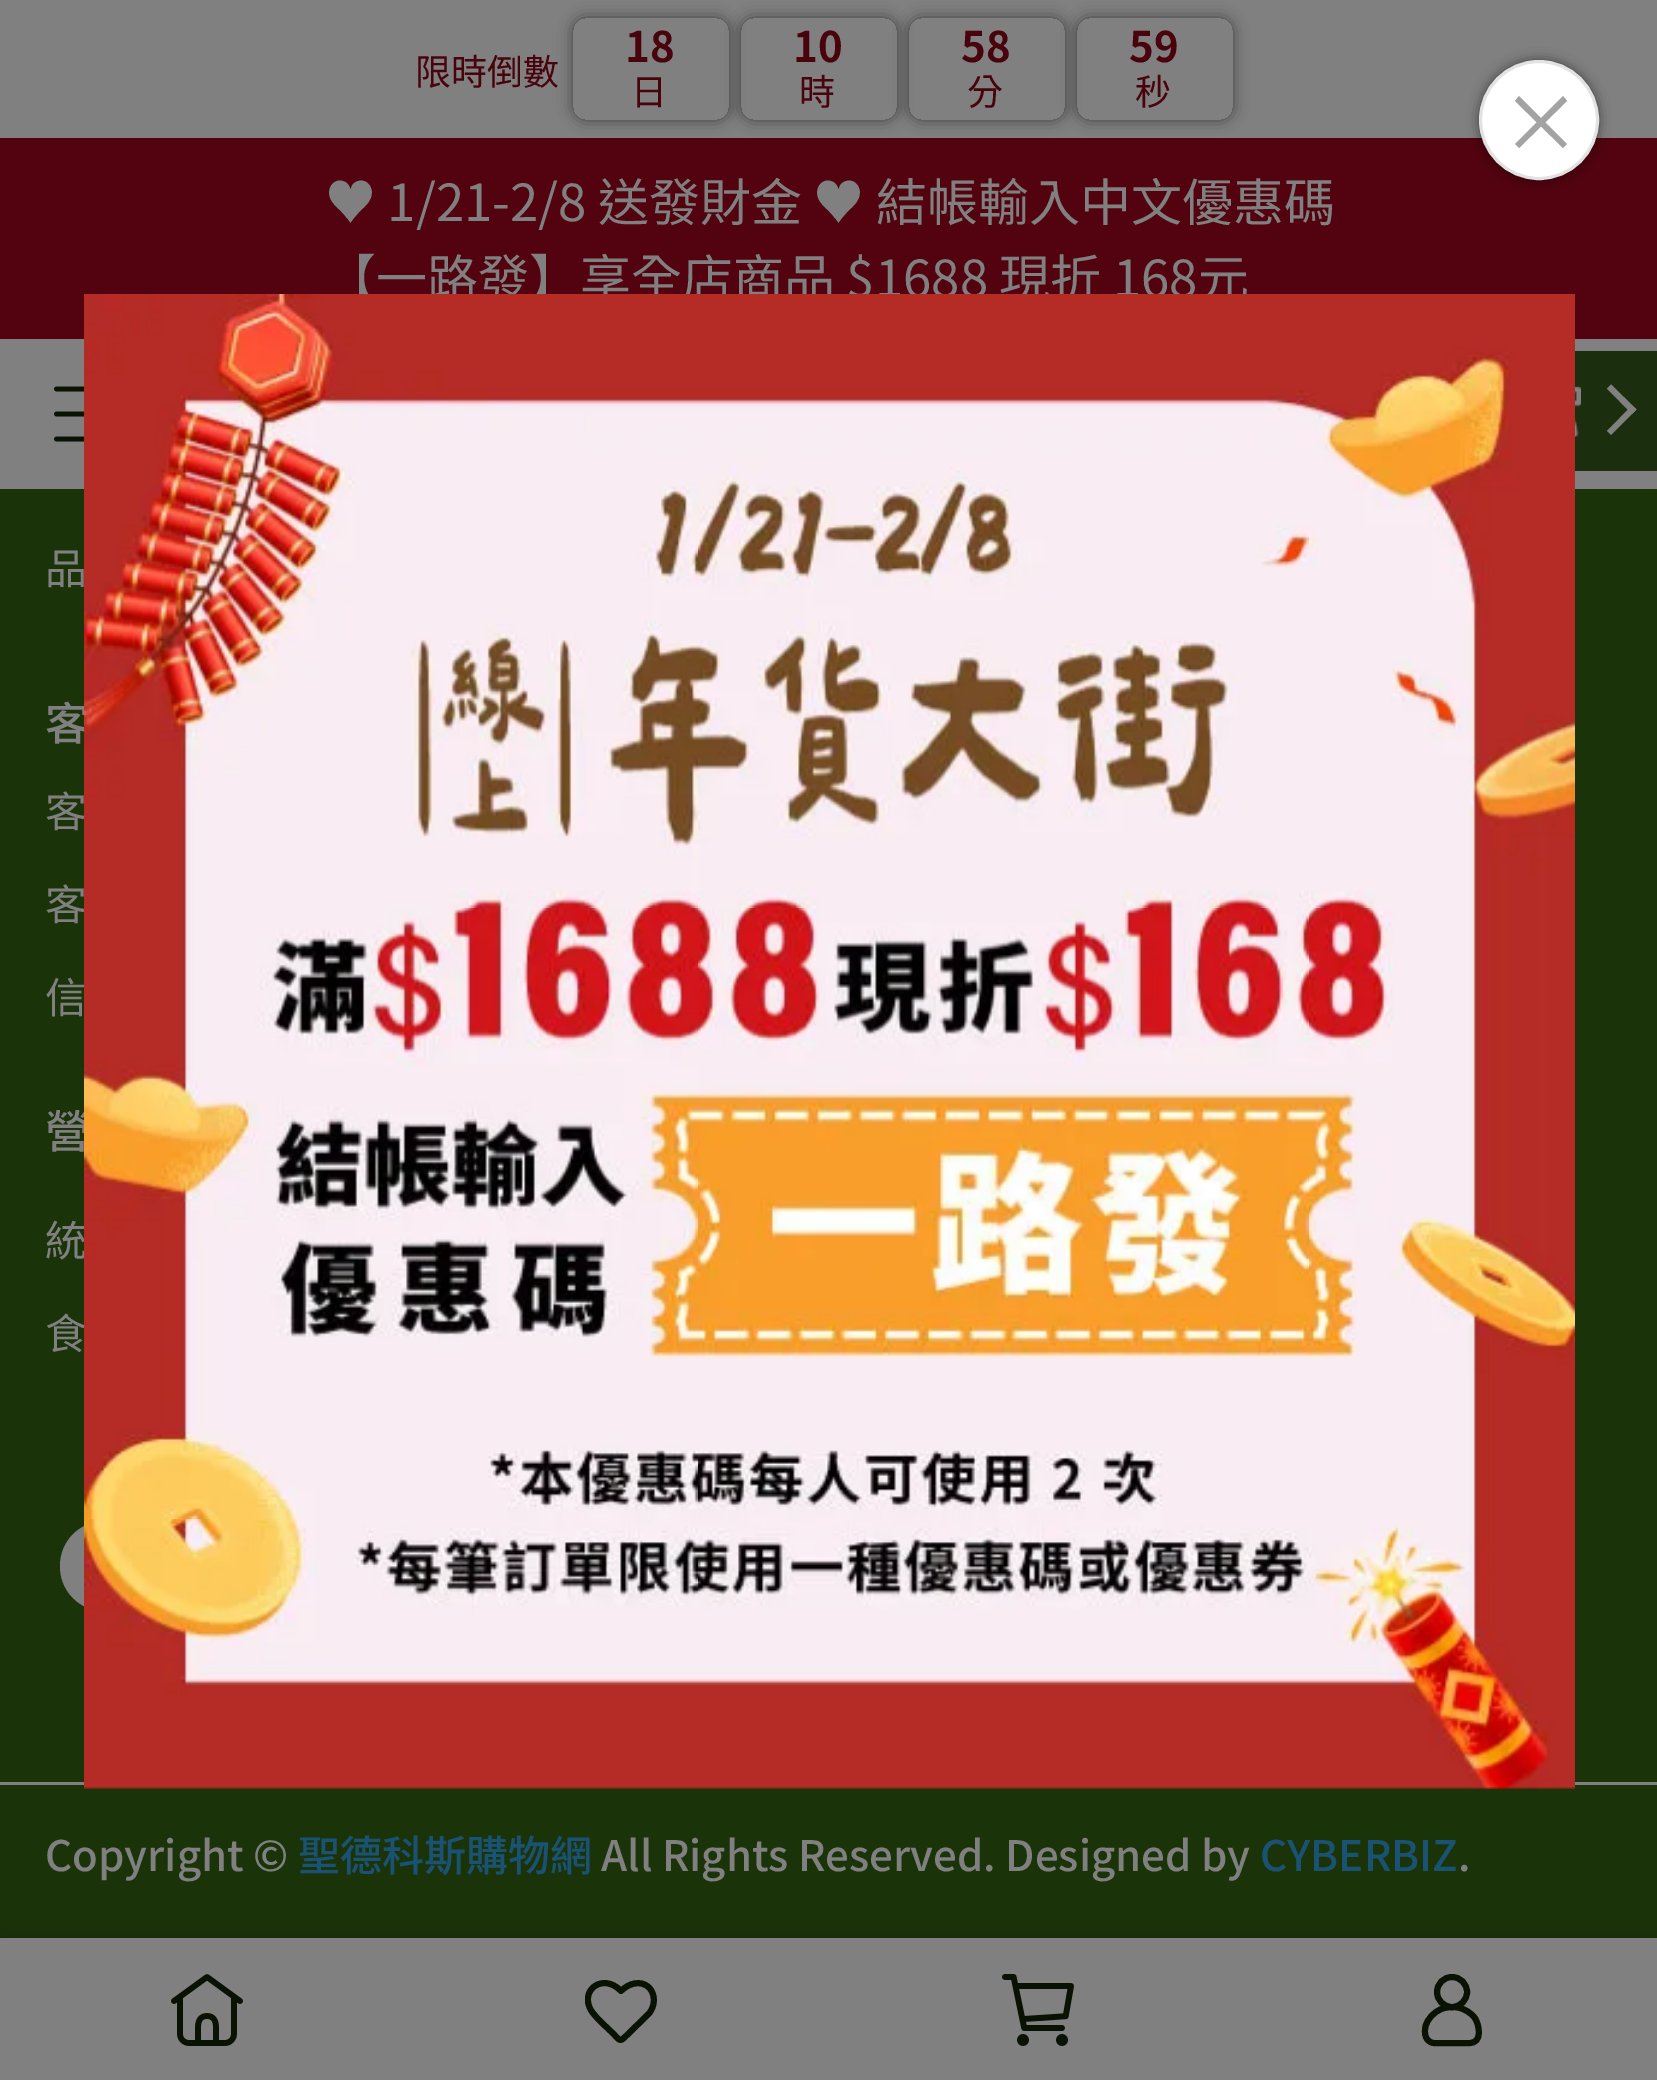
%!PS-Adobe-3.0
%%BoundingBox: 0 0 1657 2080
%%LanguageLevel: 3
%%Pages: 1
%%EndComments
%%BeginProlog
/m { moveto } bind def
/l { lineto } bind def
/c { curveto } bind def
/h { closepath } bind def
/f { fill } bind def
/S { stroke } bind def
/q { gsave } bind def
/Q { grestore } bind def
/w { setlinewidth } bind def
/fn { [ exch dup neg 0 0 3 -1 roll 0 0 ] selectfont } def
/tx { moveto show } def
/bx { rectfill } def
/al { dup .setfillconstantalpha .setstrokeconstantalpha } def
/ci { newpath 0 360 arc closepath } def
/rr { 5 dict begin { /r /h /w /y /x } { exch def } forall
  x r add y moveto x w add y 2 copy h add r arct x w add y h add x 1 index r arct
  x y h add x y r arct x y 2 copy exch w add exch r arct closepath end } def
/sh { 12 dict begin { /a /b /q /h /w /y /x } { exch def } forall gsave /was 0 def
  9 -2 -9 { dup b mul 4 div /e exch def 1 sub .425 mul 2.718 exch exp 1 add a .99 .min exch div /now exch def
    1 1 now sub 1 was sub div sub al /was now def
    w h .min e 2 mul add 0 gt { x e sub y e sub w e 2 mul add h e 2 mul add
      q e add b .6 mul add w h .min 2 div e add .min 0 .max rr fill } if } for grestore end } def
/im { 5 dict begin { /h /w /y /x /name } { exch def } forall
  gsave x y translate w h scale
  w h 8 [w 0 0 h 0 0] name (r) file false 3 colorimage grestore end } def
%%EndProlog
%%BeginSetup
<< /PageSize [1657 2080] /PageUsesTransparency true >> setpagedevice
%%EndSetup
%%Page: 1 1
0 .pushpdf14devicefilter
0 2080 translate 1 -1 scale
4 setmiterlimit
0.106 0.2 0.035 setrgbcolor
0 0 1657 2080 bx
0.502 setgray
0 0 1657 138 bx
/NotoSansTC-Regular 36 fn
0.282 0.012 0.051 setrgbcolor
(限時倒數) 415 85 tx
q
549 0 m 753 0 l 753 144 l 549 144 l h 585 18 m 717 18 l 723.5 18 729 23.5 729 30 c 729 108 l 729 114.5 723.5 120 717 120 c 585 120 l 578.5 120 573 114.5 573 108 c 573 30 l 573 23.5 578.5 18 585 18 c h eoclip newpath
0 setgray
573 18 156 102 12 7.5 0.5 sh
Q
/NotoSansTC-Bold 42 fn
(18) 625 62 tx
/NotoSansTC-Regular 36 fn
(日) 631 105 tx
q
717 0 m 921 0 l 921 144 l 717 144 l h 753 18 m 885 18 l 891.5 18 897 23.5 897 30 c 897 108 l 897 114.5 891.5 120 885 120 c 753 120 l 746.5 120 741 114.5 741 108 c 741 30 l 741 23.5 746.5 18 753 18 c h eoclip newpath
0 setgray
741 18 156 102 12 7.5 0.5 sh
Q
/NotoSansTC-Bold 42 fn
(10) 793 62 tx
/NotoSansTC-Regular 36 fn
(時) 799 105 tx
q
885 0 m 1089 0 l 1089 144 l 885 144 l h 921 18 m 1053 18 l 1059.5 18 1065 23.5 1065 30 c 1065 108 l 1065 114.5 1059.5 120 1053 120 c 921 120 l 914.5 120 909 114.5 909 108 c 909 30 l 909 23.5 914.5 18 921 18 c h eoclip newpath
0 setgray
909 18 156 102 12 7.5 0.5 sh
Q
/NotoSansTC-Bold 42 fn
(58) 961 62 tx
/NotoSansTC-Regular 36 fn
(分) 967 105 tx
q
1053 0 m 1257 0 l 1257 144 l 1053 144 l h 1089 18 m 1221 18 l 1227.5 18 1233 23.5 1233 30 c 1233 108 l 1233 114.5 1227.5 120 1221 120 c 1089 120 l 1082.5 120 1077 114.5 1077 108 c 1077 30 l 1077 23.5 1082.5 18 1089 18 c h eoclip newpath
0 setgray
1077 18 156 102 12 7.5 0.5 sh
Q
/NotoSansTC-Bold 42 fn
(59) 1129 62 tx
/NotoSansTC-Regular 36 fn
(秒) 1135 105 tx
0.322 0.012 0.059 setrgbcolor
0 138 1657 201 bx
/NotoSansTC-Regular 51 fn
0.502 setgray
(♥ 1/21-2/8 送發財金 ♥ 結帳輸入中文優惠碼) 325 221 tx
(【一路發】享全店商品 $1688 現折 168元) 325 297 tx
0 339 1657 150 bx
(image0.raw) 54 386 30 56 im
0.106 0.18 0.055 setrgbcolor
1575 351 82 120 bx
(image1.raw) 1575 386 6 51 im
0.502 setgray
1607 388.5 m 1611 384.5 l 1636.5 409.5 l 1632 414 l h f
1607 431 m 1632 405.5 l 1636.5 409.5 l 1611 435 l h f
0 setgray
0 1938 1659 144 0 15 0.2 sh
0.502 setgray
0 1938 1657 142 bx
(image2.raw) 171 1974 72 72 im
q
585 1974 72 72 rectclip
0.039 0.071 0.012 setrgbcolor
6 w
1 setlinecap
1 setlinejoin
649 1987.5 m 640.5 1979.5 628.5 1983.5 621 1991 c 603 1972 578.5 1990.5 591.5 2011 c 596.5 2018.5 605.5 2026 611.5 2032 c 620.5 2040.5 619 2043 626.5 2035.5 c 649 2013.5 l 655 2006 656 1995 649 1987.5 c h S
Q
(image3.raw) 1002 1974 72 72 im
0.039 0.071 0.012 setrgbcolor
6 w
1452 1992 15 ci S
1469 2043 m 1433.5 2043 l 1425 2041.5 1424 2033 1425.5 2026.5 c 1427.5 2018.5 1434 2012 1441.5 2009 c 1446.5 2007 1452 2006.5 1457.5 2007.5 c 1464 2008.5 1470.5 2012.5 1474.5 2017.5 c 1479.5 2024.5 1483 2043.5 1469 2043 c h S
0 setgray
1479 60 120 120 60 6 0.5 sh
1 setgray
1539 120 58.5 ci q f Q
0.886 setgray
3 w
S
0.639 setgray
1519 96 m 1567 144 l 1563 148 l 1515 101 l h f
1515 144 m 1563 96 l 1567 101 l 1519 148 l h f
/NotoSansTC-Medium 45 fn
0.502 setgray
(客) 45 740 tx
/NotoSansTC-Regular 42 fn
(客) 45 827 tx
(客) 45 920 tx
(信) 45 1013 tx
/NotoSansTC-Medium 45 fn
(營) 45 1148 tx
/NotoSansTC-Regular 42 fn
(統) 45 1256 tx
(食) 45 1349 tx
150 1566 m 150 1589 134 1607 112 1611 c 112 1579 l 122 1579 l 124 1566 l 112 1566 l 112 1554 110 1551 125 1551 c 125 1540 l 114 1538 101 1538 98 1553 c 98 1566 l 87 1566 l 87 1579 l 98 1579 l 98 1611 l 76 1607 60 1589 60 1566 c 60 1541 80 1521 105 1521 c 130 1521 150 1541 150 1566 c h f
0 1782 1657 3 bx
(image4.raw) 84 294 1491 1495 im
(品) 45 584 tx
/NotoSansTC-Medium 42 fn
(Copyright ©) 45 1871 tx
0.102 0.322 0.455 setrgbcolor
(聖德科斯購物網) 298 1871 tx
0.502 setgray
(All Rights Reserved. Designed by) 601 1871 tx
0.102 0.322 0.455 setrgbcolor
(CYBERBIZ) 1260 1871 tx
0.502 setgray
(.) 1458 1871 tx
.poppdf14devicefilter showpage
%%EOF
